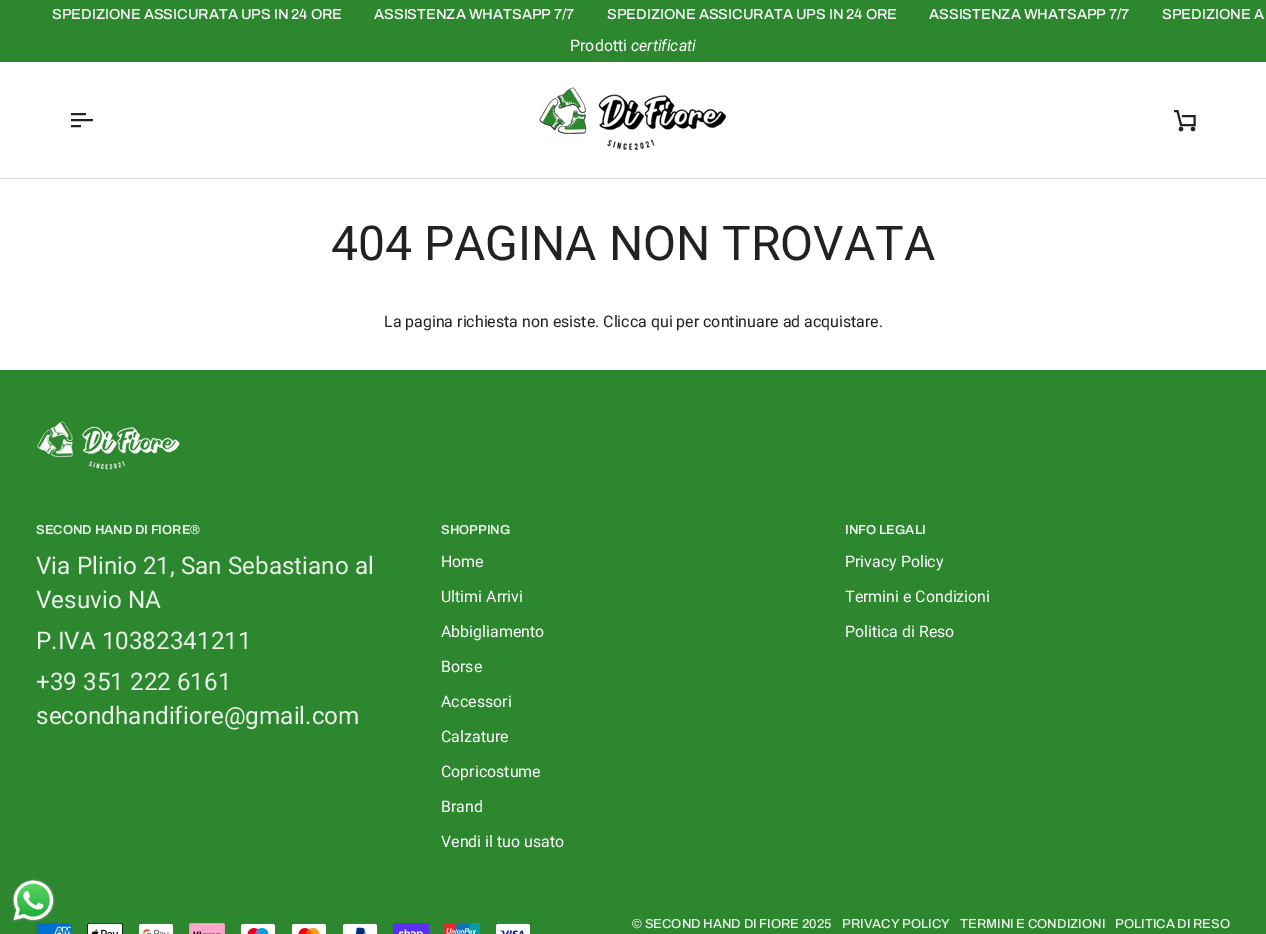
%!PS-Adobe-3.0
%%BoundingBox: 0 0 1266 934
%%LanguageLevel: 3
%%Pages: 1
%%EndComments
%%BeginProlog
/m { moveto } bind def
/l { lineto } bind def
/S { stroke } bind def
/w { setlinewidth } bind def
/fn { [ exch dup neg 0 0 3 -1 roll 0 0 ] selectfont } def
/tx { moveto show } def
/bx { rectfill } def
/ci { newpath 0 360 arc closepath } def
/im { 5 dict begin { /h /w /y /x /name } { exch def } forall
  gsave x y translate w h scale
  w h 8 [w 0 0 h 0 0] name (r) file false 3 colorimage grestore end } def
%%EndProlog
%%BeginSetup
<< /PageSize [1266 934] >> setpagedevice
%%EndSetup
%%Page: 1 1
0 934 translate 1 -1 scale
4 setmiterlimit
1 setgray
0 0 1266 934 bx
0.176 0.529 0.184 setrgbcolor
0 0 1266 62 bx
/Archivo-Medium 14.5 fn
1 setgray
(SPEDIZIONE ASSICURATA UPS IN 24 ORE) 52 19 tx
(ASSISTENZA WHATSAPP 7/7) 374 19 tx
(SPEDIZIONE ASSICURATA UPS IN 24 ORE) 607 19 tx
(ASSISTENZA WHATSAPP 7/7) 929 19 tx
(SPEDIZIONE A) 1162 19 tx
0.843 setgray
0 178 1266 1 bx
/Roboto-Regular 15.95 fn
1 setgray
(Prodotti) 570 51 tx
/Roboto-Italic 15.95 fn
(certificati) 631 51 tx
0.133 setgray
2 w
2 setlinecap
85 114 m 72 114 l 92 120 m 72 120 l 80 126 m 72 126 l S
(image0.raw) 539 87 188 64 im
0 setlinecap
1174 111 m 1177.5 111 l 1181 125 l 1194.5 125 l 1194.5 116 l 1182 116 l S
1181 129 1.2 ci S
1193 129 1.2 ci S
/Roboto-Regular 48 fn
(404 PAGINA NON TROVATA) 331 260 tx
/Roboto-Regular 15.95 fn
(La pagina richiesta non esiste. Clicca qui per continuare ad acquistare.) 384 327 tx
0.176 0.529 0.184 setrgbcolor
0 370 1266 564 bx
(image1.raw) 37 421 143 49 im
/Archivo-SemiBold 13 fn
0.918 0.953 0.918 setrgbcolor
(SECOND HAND DI FIORE®) 36 534 tx
/Roboto-Regular 24.25 fn
(Via Plinio 21, San Sebastiano al) 36 574 tx
(Vesuvio NA) 36 608 tx
(P.IVA 10382341211) 36 649 tx
(+39 351 222 6161) 36 690 tx
(secondhandifiore@gmail.com) 36 724 tx
/Archivo-SemiBold 13 fn
(SHOPPING) 441 534 tx
/Roboto-Regular 15.95 fn
1 setgray
(Home) 441 567 tx
(Ultimi Arrivi) 441 602 tx
(Abbigliamento) 441 637 tx
(Borse) 441 672 tx
(Accessori) 441 707 tx
(Calzature) 441 742 tx
(Copricostume) 441 777 tx
(Brand) 441 812 tx
(Vendi il tuo usato) 441 847 tx
/Archivo-SemiBold 13 fn
0.918 0.953 0.918 setrgbcolor
(INFO LEGALI) 845 534 tx
/Roboto-Regular 15.95 fn
1 setgray
(Privacy Policy) 845 567 tx
(Termini e Condizioni) 845 602 tx
(Politica di Reso) 845 637 tx
(image2.raw) 12 879 43 43 im
(image3.raw) 36 923 36 11 im
(image4.raw) 87 923 36 11 im
(image5.raw) 138 923 36 11 im
(image6.raw) 189 923 36 11 im
(image7.raw) 240 923 36 11 im
(image8.raw) 291 923 36 11 im
(image9.raw) 342 923 36 11 im
(image10.raw) 393 923 36 11 im
(image11.raw) 444 923 36 11 im
(image12.raw) 495 923 36 11 im
/Archivo-Medium 13 fn
0.918 0.953 0.918 setrgbcolor
(© SECOND HAND DI FIORE) 632 928 tx
(2025) 802 928 tx
(PRIVACY POLICY) 842 928 tx
(TERMINI E CONDIZIONI) 960 928 tx
(POLITICA DI RESO) 1115 928 tx
showpage
%%EOF
